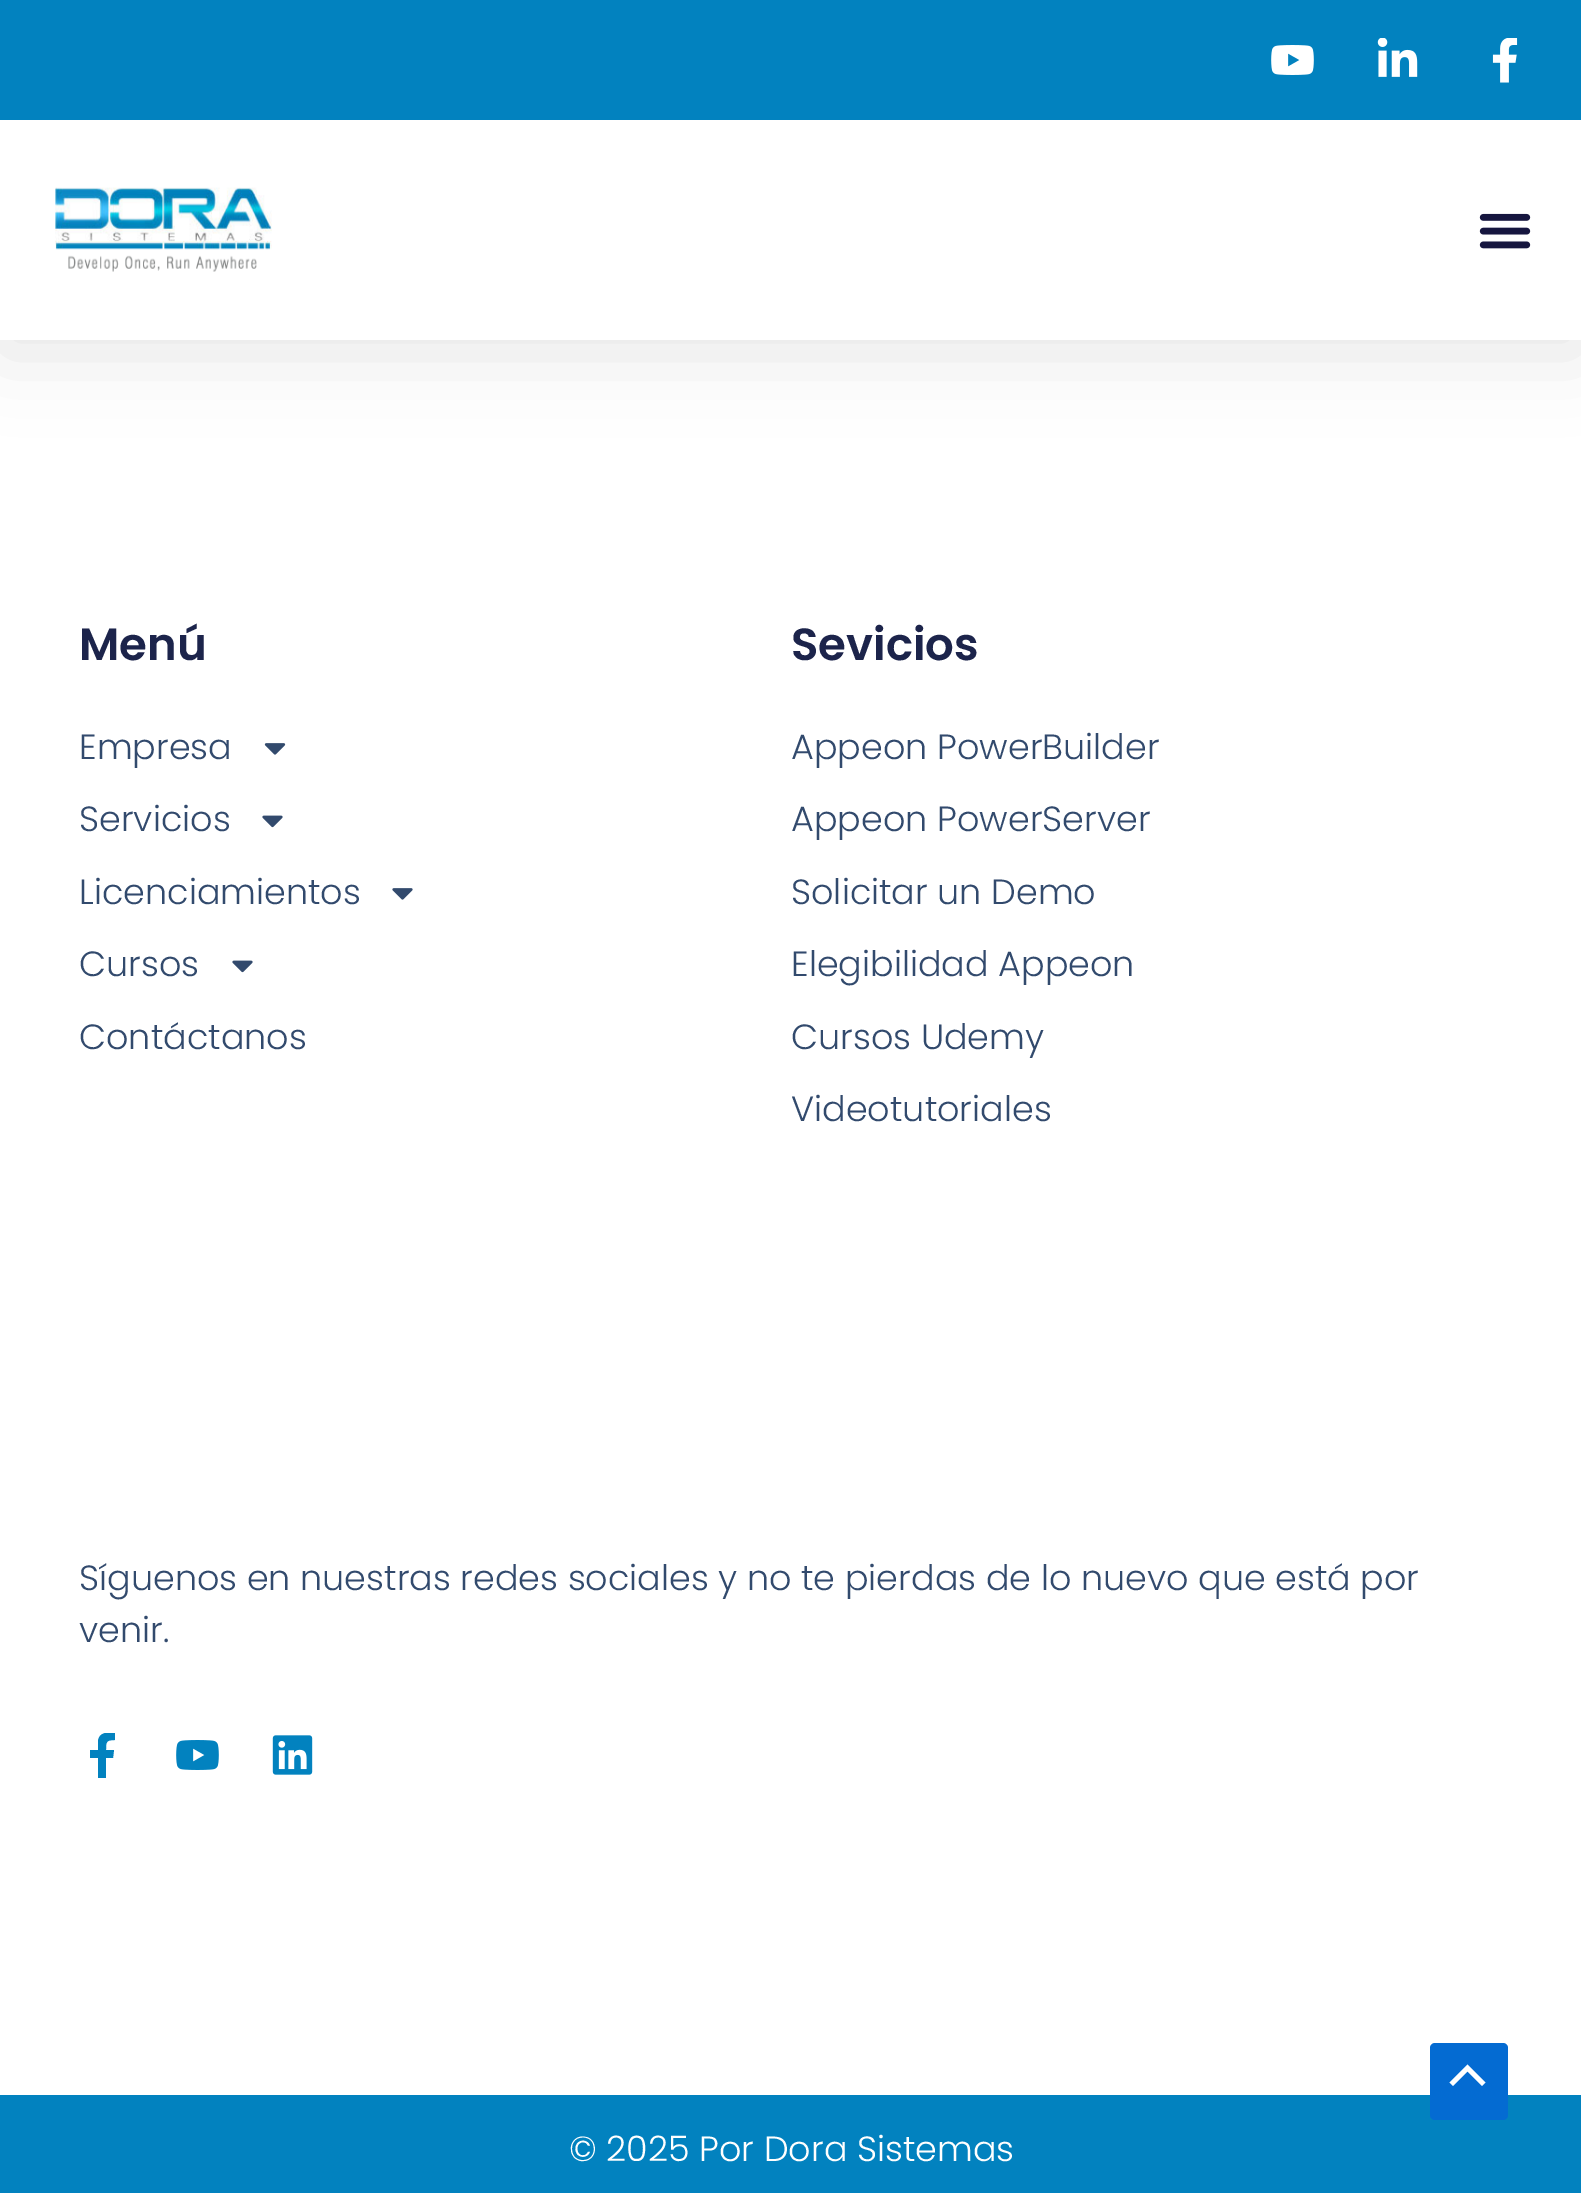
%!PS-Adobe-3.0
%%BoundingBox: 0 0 1581 2193
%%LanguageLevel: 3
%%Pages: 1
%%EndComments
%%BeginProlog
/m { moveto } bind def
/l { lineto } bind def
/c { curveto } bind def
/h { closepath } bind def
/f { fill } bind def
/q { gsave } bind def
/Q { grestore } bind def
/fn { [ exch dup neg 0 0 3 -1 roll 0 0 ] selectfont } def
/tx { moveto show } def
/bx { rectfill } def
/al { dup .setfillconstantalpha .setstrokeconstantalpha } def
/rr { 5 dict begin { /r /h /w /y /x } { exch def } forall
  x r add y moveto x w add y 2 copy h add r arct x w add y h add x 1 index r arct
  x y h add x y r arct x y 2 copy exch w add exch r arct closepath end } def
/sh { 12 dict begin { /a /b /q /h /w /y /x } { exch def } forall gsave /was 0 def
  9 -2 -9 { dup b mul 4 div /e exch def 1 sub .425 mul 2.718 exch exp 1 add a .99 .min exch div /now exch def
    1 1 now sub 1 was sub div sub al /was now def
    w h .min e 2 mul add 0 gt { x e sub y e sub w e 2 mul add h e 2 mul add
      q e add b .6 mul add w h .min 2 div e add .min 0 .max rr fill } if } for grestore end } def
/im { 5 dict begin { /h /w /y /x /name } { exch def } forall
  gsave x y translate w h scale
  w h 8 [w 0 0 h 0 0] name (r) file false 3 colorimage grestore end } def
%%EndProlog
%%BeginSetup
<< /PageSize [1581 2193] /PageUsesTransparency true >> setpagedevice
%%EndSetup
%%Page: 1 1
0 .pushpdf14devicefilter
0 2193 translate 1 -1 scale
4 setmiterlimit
1 setgray
0 0 1581 2193 bx
0 setgray
0 13 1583 340 0 37.5 0.1 sh
0.008 0.51 0.749 setrgbcolor
0 0 1581 120 bx
(image0.raw) 1271 45 43 30 im
(image1.raw) 1377 38 41 39 im
(image2.raw) 1492 38 26 45 im
1 setgray
0 120 1581 220 bx
(image3.raw) 55 187 217 85 im
(image4.raw) 1479 213 52 36 im
/Poppins-SemiBold 45 fn
0.11 0.141 0.294 setrgbcolor
(Menú) 79 660 tx
/Poppins-Light 35 fn
0.196 0.29 0.427 setrgbcolor
(Empresa) 79 759 tx
(image5.raw) 264 743 22 12 im
(Servicios) 79 831 tx
(image6.raw) 262 815 21 13 im
(Licenciamientos) 79 904 tx
(image7.raw) 392 888 21 12 im
(Cursos) 79 976 tx
(image6.raw) 232 960 21 13 im
(Contáctanos) 79 1049 tx
/Poppins-SemiBold 45 fn
0.11 0.141 0.294 setrgbcolor
(Sevicios) 791 660 tx
/Poppins-Light 35 fn
0.196 0.29 0.427 setrgbcolor
(Appeon PowerBuilder) 791 759 tx
(Appeon PowerServer) 791 831 tx
(Solicitar un Demo) 791 904 tx
(Elegibilidad Appeon) 791 976 tx
(Cursos Udemy) 791 1049 tx
(Videotutoriales) 791 1121 tx
(Síguenos en nuestras redes sociales y no te pierdas de lo nuevo que está por) 79 1590 tx
(venir.) 79 1642 tx
q
80 1733 45 45 rectclip
0.008 0.51 0.749 setrgbcolor
113 1758 m 114 1750 l 106 1750 l 106 1742 106 1740 115 1740 c 115 1733 l 108 1732 99 1732 98 1741 c 98 1750 l 90 1750 l 90 1758 l 98 1758 l 98 1778 l 106 1778 l 106 1758 l h f
Q
(image8.raw) 176 1740 43 30 im
(image9.raw) 272 1735 41 40 im
0.008 0.51 0.749 setrgbcolor
0 2095 1581 98 bx
1 setgray
(© 2025 Por Dora Sistemas) 569 2161 tx
0.016 0.42 0.824 setrgbcolor
1430 2043 78 77 5 rr f
1 setgray
1485.5 2082.5 m 1467.5 2064.5 l 1449.5 2082.5 l 1453 2086 l 1467.5 2071.5 l 1482 2086 l h f
.poppdf14devicefilter showpage
%%EOF
